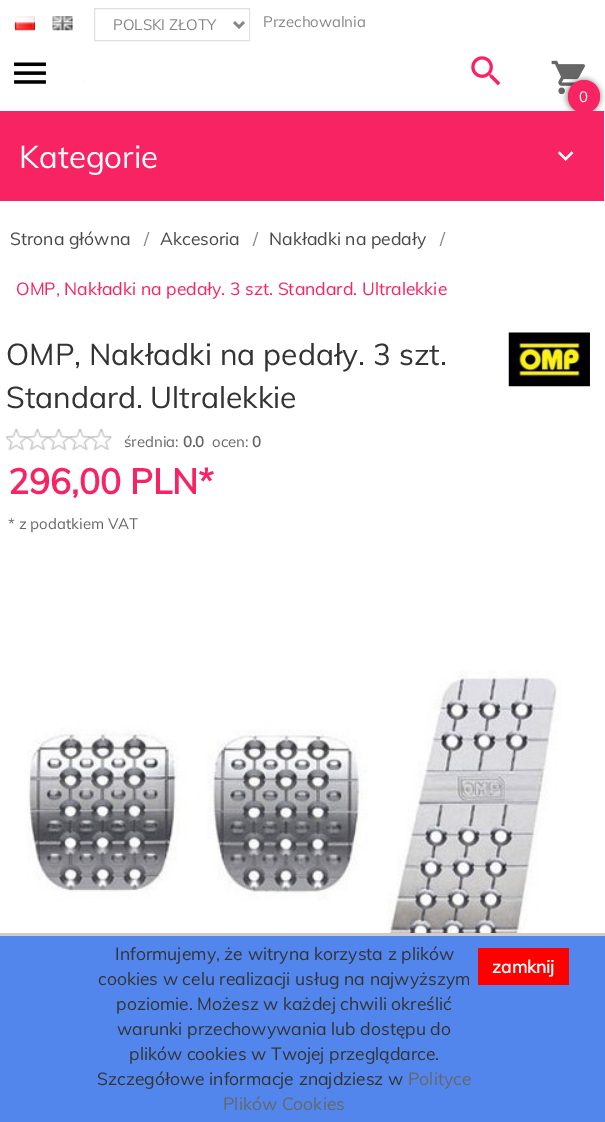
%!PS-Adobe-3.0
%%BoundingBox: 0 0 605 1122
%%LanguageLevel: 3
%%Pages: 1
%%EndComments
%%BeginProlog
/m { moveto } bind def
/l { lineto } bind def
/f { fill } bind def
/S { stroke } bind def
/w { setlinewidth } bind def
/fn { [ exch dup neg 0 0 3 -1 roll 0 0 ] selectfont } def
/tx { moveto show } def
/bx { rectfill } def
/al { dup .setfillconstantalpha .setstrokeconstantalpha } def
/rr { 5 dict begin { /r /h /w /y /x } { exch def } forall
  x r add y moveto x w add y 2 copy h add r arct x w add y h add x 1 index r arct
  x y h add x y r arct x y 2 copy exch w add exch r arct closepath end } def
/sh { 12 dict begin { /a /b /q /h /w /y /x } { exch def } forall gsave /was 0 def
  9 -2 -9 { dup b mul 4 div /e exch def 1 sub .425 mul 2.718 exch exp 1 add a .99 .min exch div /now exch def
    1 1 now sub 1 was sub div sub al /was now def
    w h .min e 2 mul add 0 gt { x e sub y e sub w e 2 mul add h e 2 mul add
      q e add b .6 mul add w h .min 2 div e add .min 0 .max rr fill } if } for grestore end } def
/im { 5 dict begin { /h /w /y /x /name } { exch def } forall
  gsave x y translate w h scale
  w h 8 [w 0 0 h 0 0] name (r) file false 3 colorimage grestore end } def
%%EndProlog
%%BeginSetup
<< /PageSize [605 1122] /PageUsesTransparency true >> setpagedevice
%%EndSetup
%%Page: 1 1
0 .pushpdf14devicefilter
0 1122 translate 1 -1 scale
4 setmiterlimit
1 setgray
0 0 605 1122 bx
(image0.raw) 15 16 20 15 im
(image1.raw) 52 16 21 15 im
0.882 setgray
94.5 8.5 155 32 rectstroke
0.525 setgray
2.5 w
234 22 m 239 27 l 244 22 l S
/Muli-Regular 15 fn
0.522 setgray
(POLSKI ZŁOTY) 113 30 tx
(Przechowalnia) 263 27 tx
(image2.raw) 14 62 32 22 im
0.957 0.949 0.957 setrgbcolor
84 80 1 1 bx
(image3.raw) 471 56 30 30 im
(image4.raw) 551 60 34 35 im
0 setgray
566 79 35 35 17.5 2.5 0.36 sh
0.969 0.137 0.388 setrgbcolor
568 80 32 33 16 rr f
1 setgray
(0) 579 102 tx
0.882 setgray
604 111 1 1 bx
604 200 1 1 bx
0.969 0.137 0.388 setrgbcolor
0 111 604 90 bx
/Muli-Regular 31.25 fn
1 setgray
(Kategorie) 19 168 tx
(image5.raw) 557 151 17 10 im
/Muli-Regular 17.5 fn
0.282 setgray
(Strona główna) 10 245 tx
0.522 setgray
(/) 144 245 tx
0.282 setgray
(Akcesoria) 160 245 tx
0.522 setgray
(/) 253 245 tx
0.282 setgray
(Nakładki na pedały) 269 245 tx
0.522 setgray
(/) 440 245 tx
0.969 0.137 0.388 setrgbcolor
(OMP, Nakładki na pedały. 3 szt. Standard. Ultralekkie) 16 295 tx
/Muli-Regular 30 fn
0.2 setgray
(OMP, Nakładki na pedały. 3 szt.) 6 365 tx
(Standard. Ultralekkie) 6 408 tx
(image6.raw) 6 428 106 22 im
/Muli-Regular 15 fn
0.4 setgray
(średnia:) 124 447 tx
/Muli-Bold 15 fn
(0.0) 183 447 tx
/Muli-Regular 15 fn
(ocen:) 212 447 tx
/Muli-Bold 15 fn
(0) 252 447 tx
(image7.raw) 508 332 82 55 im
/Muli-Bold 35 fn
0.969 0.137 0.388 setrgbcolor
(296,00 PLN*) 8 494 tx
/Muli-Regular 15 fn
0.4 setgray
(* z podatkiem VAT) 8 529 tx
(image8.raw) 11 670 551 263 im
0.325 0.525 0.929 setrgbcolor
0 936 605 186 bx
0.8 setgray
0 933 605 3 bx
/Muli-Regular 17.5 fn
0.2 setgray
(Informujemy, że witryna korzysta z plików) 115 960 tx
(cookies w celu realizacji usług na najwyższym) 98 985 tx
(poziomie. Możesz w każdej chwili określić) 116 1010 tx
(warunki przechowywania lub dostępu do) 117 1035 tx
(plików cookies w Twojej przeglądarce.) 129 1060 tx
(Szczegółowe informacje znajdziesz w) 97 1085 tx
0.4 setgray
(Polityce) 408 1085 tx
(Plików Cookies) 223 1110 tx
1 0 0 setrgbcolor
478 948 91 37 bx
/Muli-Bold 17.5 fn
1 setgray
(zamknij) 492 973 tx
.poppdf14devicefilter showpage
%%EOF
